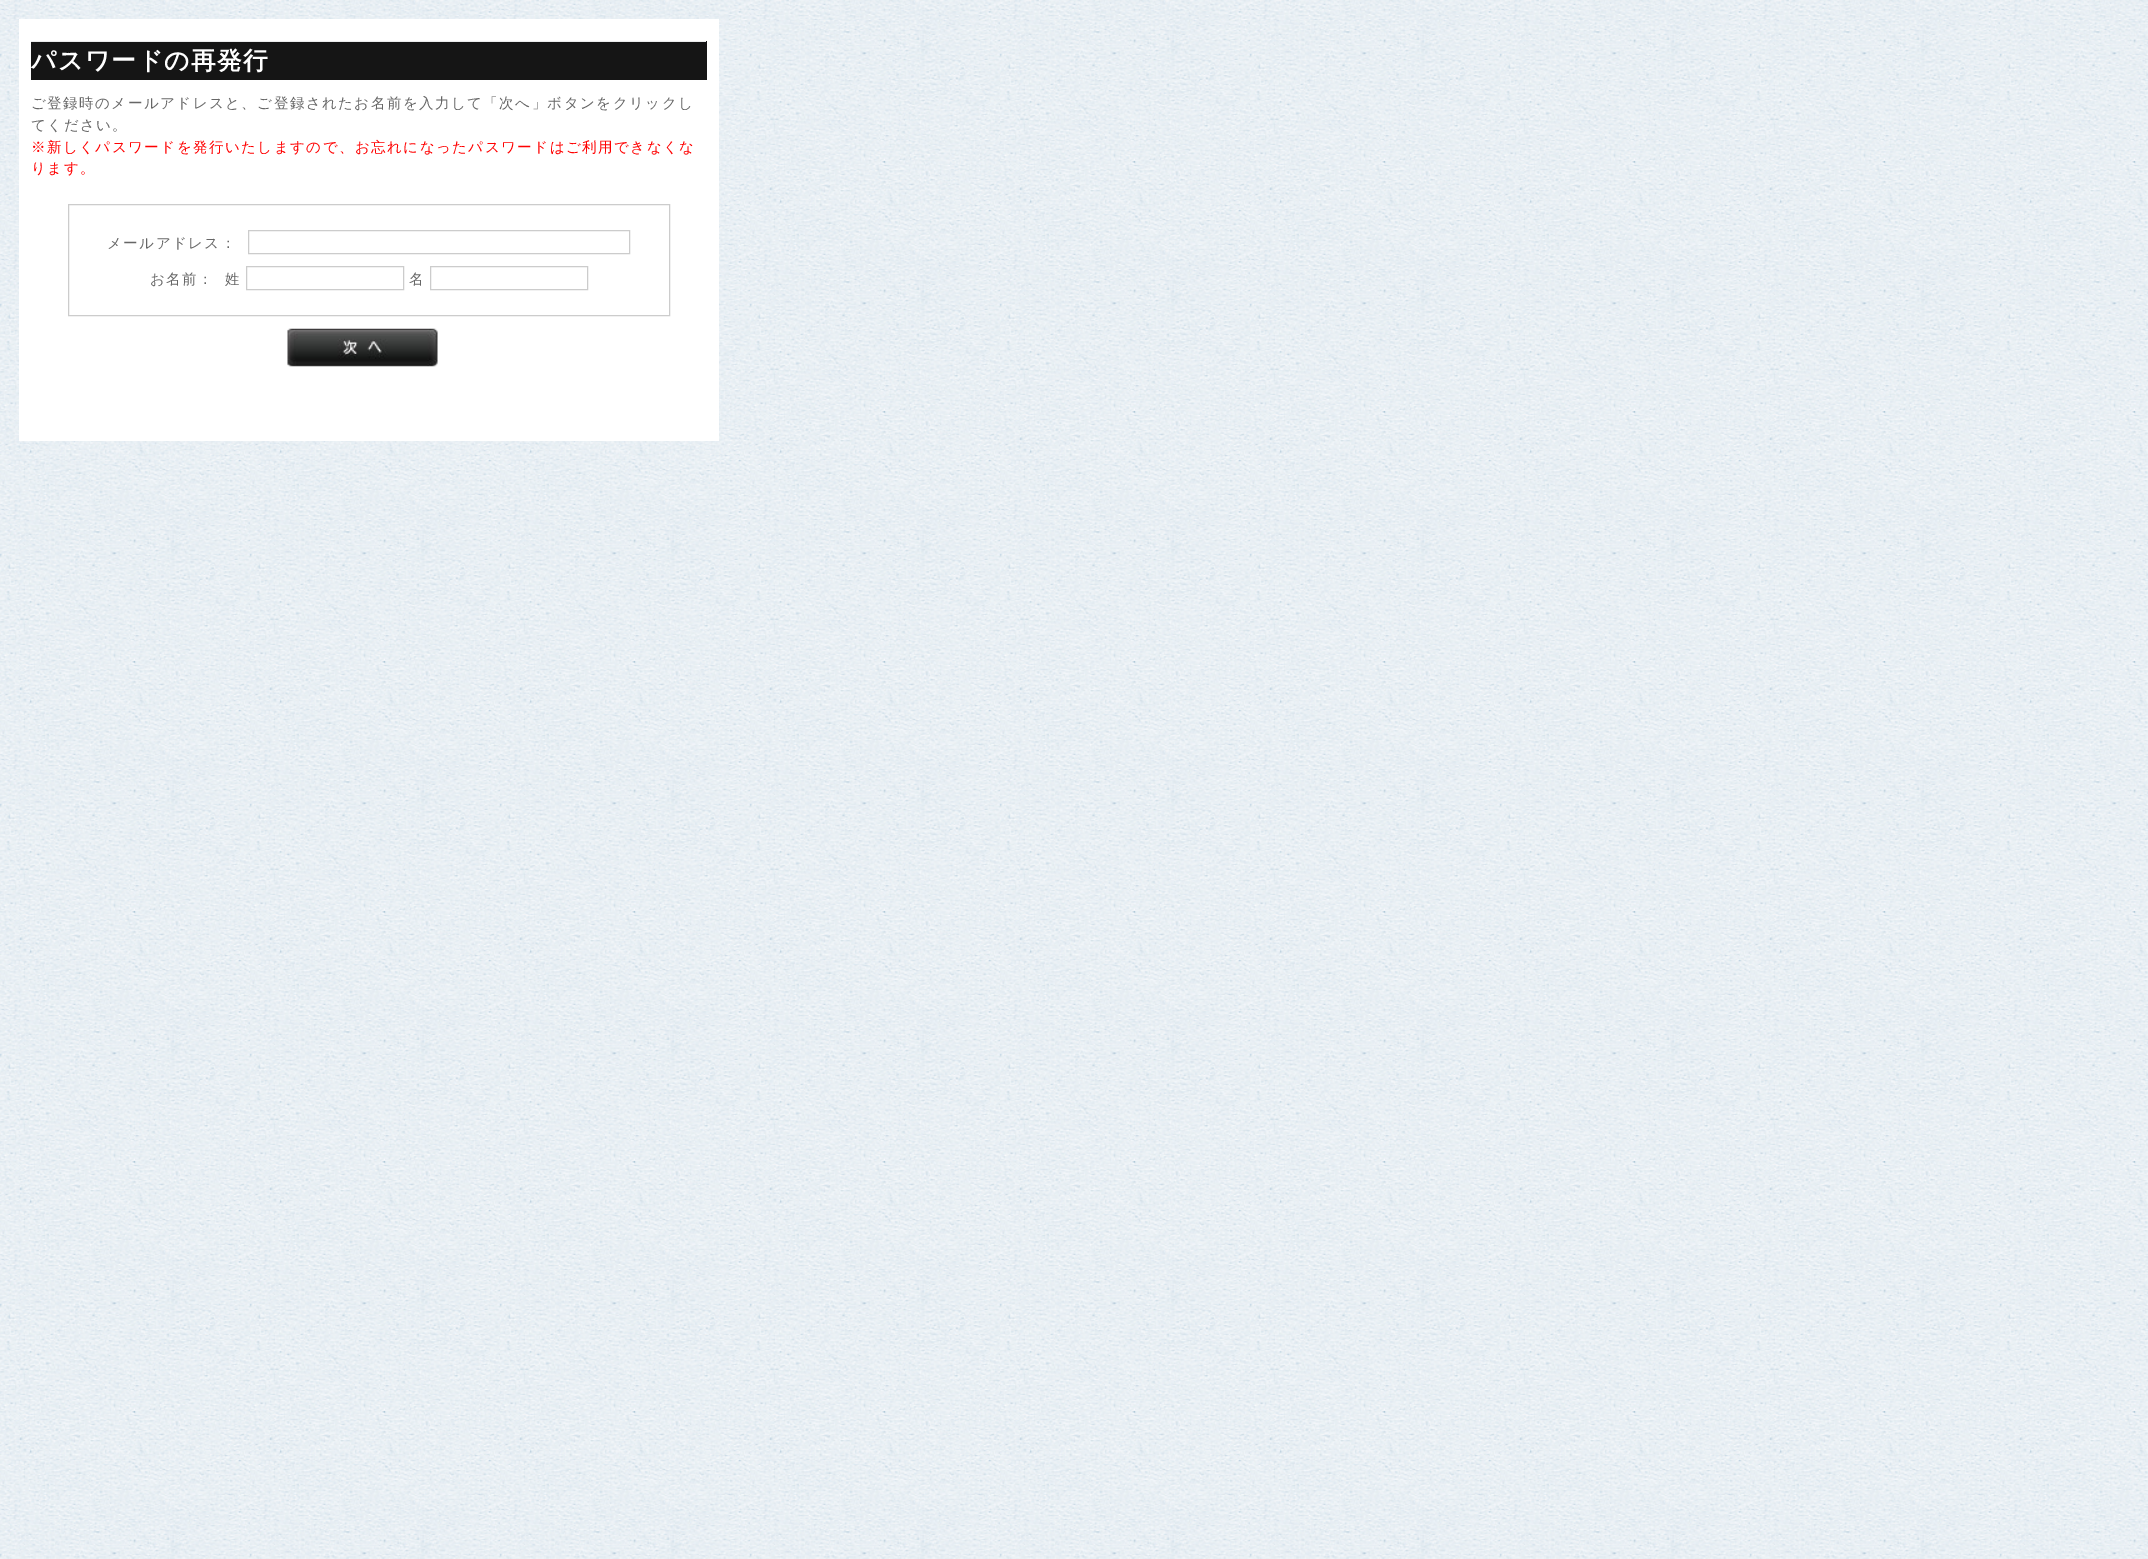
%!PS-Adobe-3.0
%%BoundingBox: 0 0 2148 1559
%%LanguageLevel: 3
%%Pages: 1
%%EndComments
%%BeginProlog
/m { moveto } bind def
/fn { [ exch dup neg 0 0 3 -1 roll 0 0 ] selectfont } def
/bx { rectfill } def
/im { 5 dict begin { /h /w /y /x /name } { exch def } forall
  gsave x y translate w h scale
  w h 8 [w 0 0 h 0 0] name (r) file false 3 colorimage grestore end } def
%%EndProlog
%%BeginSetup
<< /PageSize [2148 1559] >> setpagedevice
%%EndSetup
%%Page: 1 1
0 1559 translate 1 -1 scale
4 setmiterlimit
1 setgray
0 0 2148 1559 bx
(image0.raw) 0 0 2148 1559 im
19 19 700 422 bx
0.082 setgray
31 41 676 39 bx
0.922 0.925 0.929 setrgbcolor
31 41 675 1 bx
/WenQuanYiZenHei-Bold 24.75 fn
1 setgray
31 69 m 1.45 0 (パスワードの再発行) ashow
/WenQuanYiZenHei-Medium 14.5 fn
0.4 setgray
31 108 m 1.45 0 (ご登録時のメールアドレスと、ご登録されたお名前を入力して「次へ」ボタンをクリックし) ashow
31 130 m 1.45 0 (てください。) ashow
1 0 0 setrgbcolor
31 152 m 1.45 0 (※新しくパスワードを発行いたしますので、お忘れになったパスワードはご利用できなくな) ashow
31 173 m 1.45 0 (ります。) ashow
0.8 setgray
68.5 204.5 601 111 rectstroke
0.4 setgray
107 248 m 1.45 0 (メールアドレス：) ashow
0.8 setgray
248.5 230.5 381 23 rectstroke
0.4 setgray
150 284 m 1.45 0 (お名前：) ashow
225 284 m 1.45 0 (姓) ashow
0.8 setgray
246.5 266.5 157 23 rectstroke
0.4 setgray
409 284 m 1.45 0 (名) ashow
0.8 setgray
430.5 266.5 157 23 rectstroke
(image1.raw) 287 328 151 39 im
showpage
%%EOF
